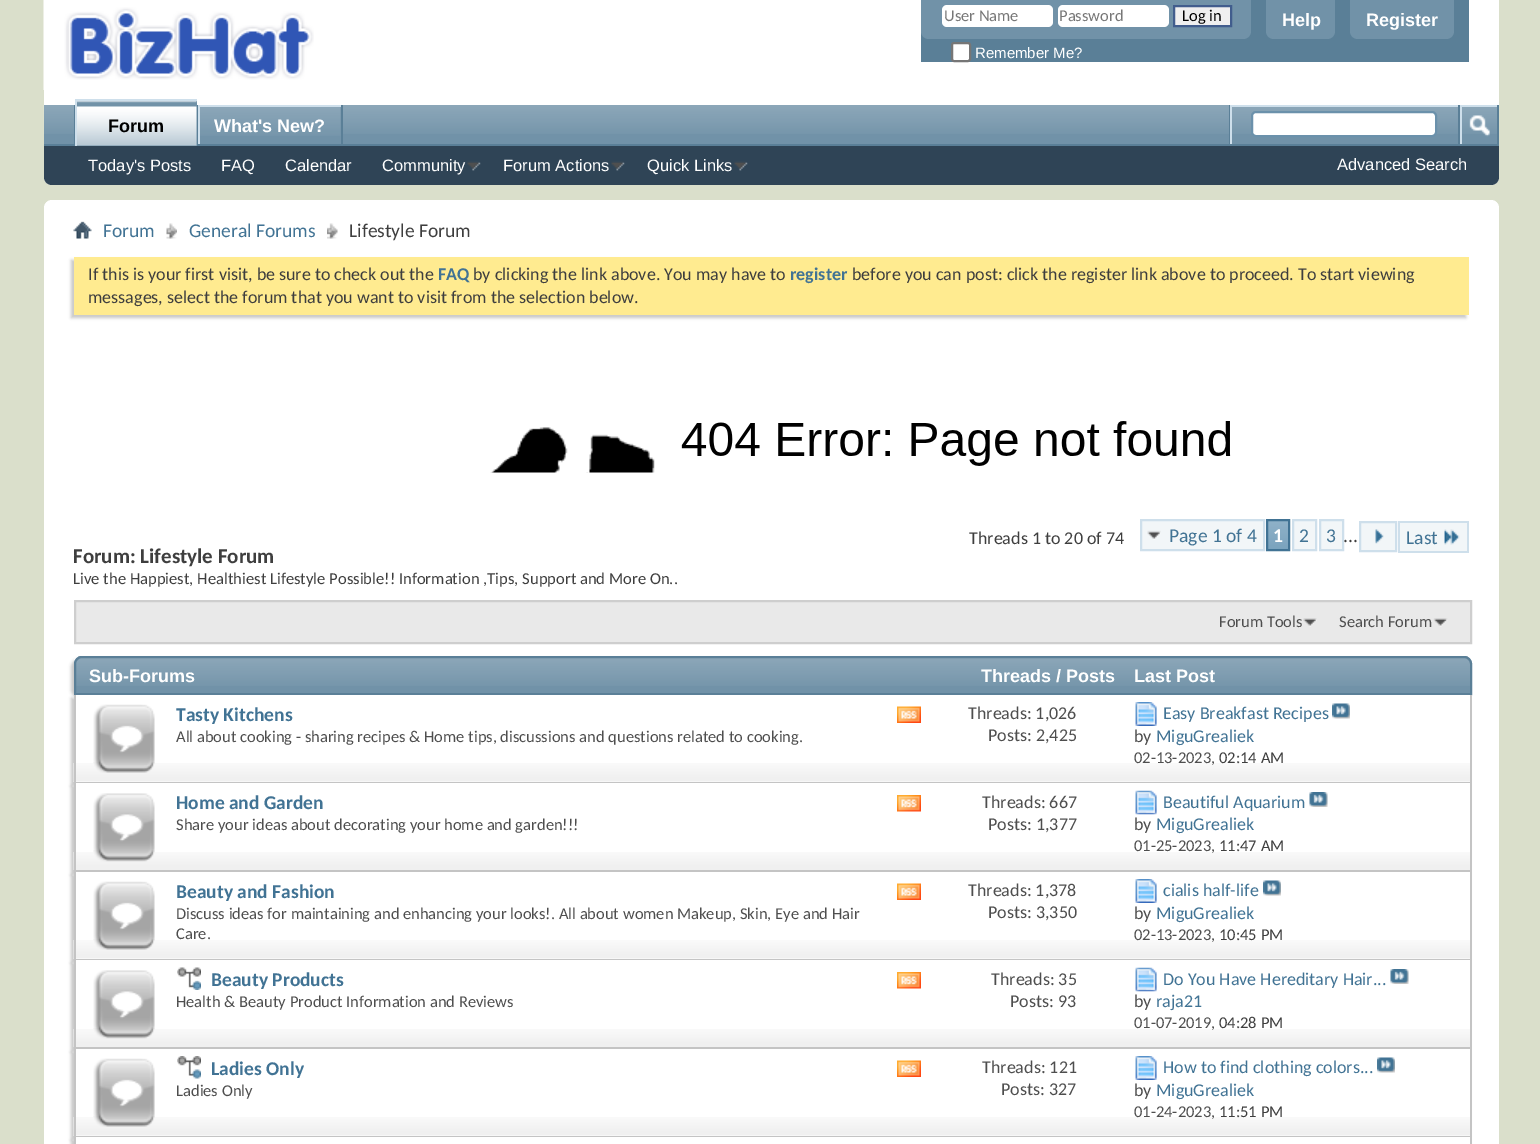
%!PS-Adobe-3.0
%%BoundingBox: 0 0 1540 1144
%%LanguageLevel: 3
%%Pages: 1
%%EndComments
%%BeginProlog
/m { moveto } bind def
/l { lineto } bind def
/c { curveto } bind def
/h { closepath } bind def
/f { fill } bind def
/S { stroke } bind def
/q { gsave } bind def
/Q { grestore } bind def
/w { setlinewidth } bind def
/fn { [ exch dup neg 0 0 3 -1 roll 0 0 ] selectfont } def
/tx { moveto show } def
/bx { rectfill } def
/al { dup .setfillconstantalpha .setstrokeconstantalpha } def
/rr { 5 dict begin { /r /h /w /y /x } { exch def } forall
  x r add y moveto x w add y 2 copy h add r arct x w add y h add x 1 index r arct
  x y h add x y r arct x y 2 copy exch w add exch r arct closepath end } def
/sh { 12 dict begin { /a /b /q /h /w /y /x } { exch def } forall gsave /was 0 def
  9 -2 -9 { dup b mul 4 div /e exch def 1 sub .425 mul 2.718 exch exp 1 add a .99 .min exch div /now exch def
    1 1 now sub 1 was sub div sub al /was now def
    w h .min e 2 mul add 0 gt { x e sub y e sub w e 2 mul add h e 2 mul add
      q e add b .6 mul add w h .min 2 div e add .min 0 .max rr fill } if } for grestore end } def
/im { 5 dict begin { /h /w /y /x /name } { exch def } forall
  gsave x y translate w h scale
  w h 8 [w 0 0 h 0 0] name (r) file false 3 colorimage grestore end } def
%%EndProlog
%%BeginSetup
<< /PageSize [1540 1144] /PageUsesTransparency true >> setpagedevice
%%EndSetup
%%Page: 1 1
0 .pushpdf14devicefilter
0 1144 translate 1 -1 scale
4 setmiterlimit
0.855 0.875 0.796 setrgbcolor
0 0 1540 1144 bx
1 setgray
44 0 m 1499 0 l 1499 177 l 1499 181.5 1495.5 185 1491 185 c 52 185 l 47.5 185 44 181.5 44 177 c h f
(image0.raw) 43 0 271 90 im
0.353 0.498 0.592 setrgbcolor
921 0 548 62 bx
0.443 0.573 0.659 setrgbcolor
921 0 m 1251 0 l 1251 31 l 1251 35.5 1247.5 39 1243 39 c 929 39 l 924.5 39 921 35.5 921 31 c h f
1 setgray
942 5 111 22 5 rr f
/Carlito-Regular 16.5 fn
0.467 setgray
(User Name) 944 21 tx
1 setgray
1058 5 111 22 5 rr f
0.467 setgray
(Password) 1059 21 tx
0.937 setgray
1174 6 m 1231 6 l 1231 26 l 1174 26 l h q f Q
0.255 0.365 0.553 setrgbcolor
2 w
S
0 setgray
(Log in) 1182 21 tx
1 setgray
952 43 18 18 2 rr q f Q
0.463 setgray
S
/LiberationSans-Regular 15 fn
1 setgray
(Remember Me?) 975 58 tx
0.443 0.573 0.659 setrgbcolor
1266 0 m 1335 0 l 1335 31 l 1335 35.5 1331.5 39 1327 39 c 1274 39 l 1269.5 39 1266 35.5 1266 31 c h f
/LiberationSans-Bold 18 fn
1 setgray
(Help) 1282 26 tx
0.443 0.573 0.659 setrgbcolor
1350 0 m 1454 0 l 1454 31 l 1454 35.5 1450.5 39 1446 39 c 1358 39 l 1353.5 39 1350 35.5 1350 31 c h f
1 setgray
(Register) 1366 26 tx
0.184 0.267 0.337 setrgbcolor
44 105 m 1499 105 l 1499 177 l 1499 181.5 1495.5 185 1491 185 c 52 185 l 47.5 185 44 181.5 44 177 c h f
0.443 0.573 0.659 setrgbcolor
44 105 1453 39 bx
(image1.raw) 43 105 1454 29 im
0.353 0.498 0.592 setrgbcolor
341 105 2 41 bx
0.443 0.573 0.659 setrgbcolor
200 107 141 27 bx
(image2.raw) 200 107 141 29 im
0.808 0.875 0.922 setrgbcolor
198 105 143 2 bx
198 105 2 41 bx
1 setgray
(What's New?) 214 132 tx
0.353 0.498 0.592 setrgbcolor
197 105 1 39 bx
74 105 1 39 bx
44 144 1455 2 bx
0.443 0.573 0.659 setrgbcolor
77 101 120 45 bx
(image3.raw) 77 101 120 45 im
0.808 0.875 0.922 setrgbcolor
75 99 122 2 bx
75 99 2 47 bx
0 setgray
(Forum) 108 132 tx
/LiberationSans-Regular 16.5 fn
1 setgray
(Today's Posts) 88 171 tx
(FAQ) 221 171 tx
(Calendar) 285 171 tx
(Community) 382 171 tx
(image4.raw) 467 161 14 10 im
(Forum Actions) 503 171 tx
(image5.raw) 611 161 14 10 im
(Quick Links) 647 171 tx
(image5.raw) 734 161 14 10 im
0.353 0.498 0.592 setrgbcolor
1229 105 1 39 bx
0.808 0.875 0.922 setrgbcolor
1230 105 228 2 bx
1230 105 2 39 bx
1 setgray
1252 112 184 24 4 rr q f Q
0.42 0.569 0.671 setrgbcolor
S
0.353 0.498 0.592 setrgbcolor
1497 105 2 39 bx
1458 105 2 39 bx
0.808 0.875 0.922 setrgbcolor
1460 105 37 2 bx
1460 105 2 39 bx
(image6.raw) 1469 115 21 22 im
1 setgray
(Advanced Search) 1337 170 tx
44 200 1455 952 8 rr f
(image7.raw) 73 221 19 18 im
(image8.raw) 166 223 11 16 im
/Carlito-Regular 19.5 fn
0.255 0.451 0.58 setrgbcolor
(Forum) 103 237 tx
(image9.raw) 327 223 11 16 im
(General Forums) 189 237 tx
0.243 setgray
(Lifestyle Forum) 349 237 tx
0.784 setgray
71 260 1395 58 0 1.5 1 sh
1 0.922 0.565 setrgbcolor
74 257 1395 58 bx
/Carlito-Regular 18 fn
0.243 setgray
(If this is your first visit, be sure to check out the) 88 280 tx
/Carlito-Bold 18 fn
0.255 0.451 0.58 setrgbcolor
(FAQ) 438 280 tx
/Carlito-Regular 18 fn
0.243 setgray
(by clicking the link above. You may have to) 473 280 tx
/Carlito-Bold 18 fn
0.255 0.451 0.58 setrgbcolor
(register) 790 280 tx
/Carlito-Regular 18 fn
0.243 setgray
(before you can post: click the register link above to proceed. To start viewing) 852 280 tx
(messages, select the forum that you want to visit from the selection below.) 88 303 tx
(image10.raw) 490 421 741 52 im
(Threads 1 to 20 of 74) 969 544 tx
0.949 0.965 0.973 setrgbcolor
1142 521 121 28 bx
(image11.raw) 1147 530 14 10 im
0.808 0.875 0.922 setrgbcolor
1141 520 123 30 rectstroke
/Carlito-Regular 19.5 fn
0.255 0.451 0.58 setrgbcolor
(Page 1 of 4) 1169 542 tx
0.459 0.624 0.733 setrgbcolor
1268 521 20 28 bx
(image12.raw) 1268 521 20 28 im
0.255 0.451 0.58 setrgbcolor
1267 520 22 30 rectstroke
/Carlito-Bold 19.5 fn
1 setgray
(1) 1273 542 tx
0.949 0.965 0.973 setrgbcolor
1293 520 m 1316 520 l 1316 550 l 1293 550 l h q f Q
0.808 0.875 0.922 setrgbcolor
S
/Carlito-Regular 19.5 fn
0.255 0.451 0.58 setrgbcolor
(2) 1299 542 tx
0.949 0.965 0.973 setrgbcolor
1320 520 m 1343 520 l 1343 550 l 1320 550 l h q f Q
0.808 0.875 0.922 setrgbcolor
S
0.255 0.451 0.58 setrgbcolor
(3) 1326 542 tx
0.243 setgray
(...) 1343 542 tx
0.949 0.965 0.973 setrgbcolor
1360 522 m 1396 522 l 1396 551 l 1360 551 l h q f Q
0.808 0.875 0.922 setrgbcolor
S
(image13.raw) 1375 529 9 15 im
0.949 0.965 0.973 setrgbcolor
1400 523 67 28 bx
0.255 0.451 0.58 setrgbcolor
(Last) 1406 544 tx
0.808 0.875 0.922 setrgbcolor
1398 521 71 2 bx
1398 551 41 2 bx
1398 521 2 31 bx
1467 521 2 31 bx
1439 551 30 2 bx
(image14.raw) 1444 529 16 16 im
/Carlito-Bold 21 fn
0.243 setgray
(Forum: Lifestyle Forum) 73 563 tx
/Carlito-Regular 16.6 fn
(Live the Happiest, Healthiest Lifestyle Possible!! Information ,Tips, Support and More On..) 73 584 tx
0.914 setgray
75 601 m 1471 601 l 1471 643 l 75 643 l h q f Q
0.808 setgray
S
(image15.raw) 1303 618 14 9 im
/Carlito-Regular 16.5 fn
0.306 setgray
(Forum Tools) 1219 627 tx
(image16.raw) 1433 618 15 9 im
(Search Forum) 1339 627 tx
0.784 setgray
71 659 1398 39 8 1.5 1 sh
0.443 0.573 0.659 setrgbcolor
82 656 m 1464 656 l 1468.5 656 1472 659.5 1472 664 c 1472 695 l 74 695 l 74 664 l 74 659.5 77.5 656 82 656 c h f
(image17.raw) 74 657 1398 29 im
0.353 0.498 0.592 setrgbcolor
82 657 m 1464 657 l 1468 657 1471 660 1471 664 c 1471 694 l 75 694 l 75 664 l 75 660 78 657 82 657 c h S
/LiberationSans-Bold 18 fn
1 setgray
(Sub-Forums) 89 682 tx
(Threads / Posts) 981 682 tx
(Last Post) 1134 682 tx
0.784 setgray
71 698 1398 88 0 1.5 1 sh
1 setgray
76 695 1394 87 bx
(image18.raw) 73 763 1397 19 im
0.769 setgray
1470 695 2 88 bx
74 782 1398 1 bx
74 695 2 88 bx
(image19.raw) 93 704 62 69 im
/Carlito-Bold 19.5 fn
0.255 0.451 0.58 setrgbcolor
(Tasty Kitchens) 176 721 tx
/Carlito-Regular 16.5 fn
0.306 setgray
(All about cooking - sharing recipes & Home tips, discussions and questions related to cooking.) 176 742 tx
(image20.raw) 897 706 24 17 im
/Carlito-Regular 18 fn
(Threads: 1,026) 968 719 tx
(Posts: 2,425) 988 741 tx
(image21.raw) 1135 702 22 24 im
0.255 0.451 0.58 setrgbcolor
(Easy Breakfast Recipes) 1163 719 tx
(image22.raw) 1332 703 18 16 im
0.306 setgray
(by) 1134 742 tx
0.255 0.451 0.58 setrgbcolor
(MiguGrealiek) 1156 742 tx
/Carlito-Regular 16.5 fn
0.306 setgray
(02-13-2023,) 1134 763 tx
0.243 setgray
(02:14 AM) 1219 763 tx
0.784 setgray
71 786 1398 89 0 1.5 1 sh
1 setgray
76 783 1394 87 bx
(image23.raw) 73 852 1397 18 im
0.769 setgray
1470 783 2 89 bx
74 870 1398 2 bx
74 783 2 89 bx
(image24.raw) 93 793 62 69 im
/Carlito-Bold 19.5 fn
0.255 0.451 0.58 setrgbcolor
(Home and Garden) 176 809 tx
/Carlito-Regular 16.5 fn
0.306 setgray
(Share your ideas about decorating your home and garden!!!) 176 830 tx
(image25.raw) 897 795 24 17 im
/Carlito-Regular 18 fn
(Threads: 667) 982 808 tx
(Posts: 1,377) 988 830 tx
(image26.raw) 1135 790 22 25 im
0.255 0.451 0.58 setrgbcolor
(Beautiful Aquarium) 1163 808 tx
(image27.raw) 1309 792 19 15 im
0.306 setgray
(by) 1134 830 tx
0.255 0.451 0.58 setrgbcolor
(MiguGrealiek) 1156 830 tx
/Carlito-Regular 16.5 fn
0.306 setgray
(01-25-2023,) 1134 851 tx
0.243 setgray
(11:47 AM) 1219 851 tx
0.784 setgray
71 875 1398 88 0 1.5 1 sh
1 setgray
76 872 1394 87 bx
(image18.raw) 73 940 1397 19 im
0.769 setgray
1470 872 2 88 bx
74 959 1398 1 bx
74 872 2 88 bx
(image19.raw) 93 881 62 69 im
/Carlito-Bold 19.5 fn
0.255 0.451 0.58 setrgbcolor
(Beauty and Fashion) 176 898 tx
/Carlito-Regular 16.5 fn
0.306 setgray
(Discuss ideas for maintaining and enhancing your looks!. All about women Makeup, Skin, Eye and Hair) 176 919 tx
(Care.) 176 939 tx
(image20.raw) 897 883 24 17 im
/Carlito-Regular 18 fn
(Threads: 1,378) 968 896 tx
(Posts: 3,350) 988 918 tx
(image21.raw) 1135 879 22 24 im
0.255 0.451 0.58 setrgbcolor
(cialis half-life) 1163 896 tx
(image28.raw) 1263 880 18 16 im
0.306 setgray
(by) 1134 919 tx
0.255 0.451 0.58 setrgbcolor
(MiguGrealiek) 1156 919 tx
/Carlito-Regular 16.5 fn
0.306 setgray
(02-13-2023,) 1134 940 tx
0.243 setgray
(10:45 PM) 1219 940 tx
0.784 setgray
71 963 1398 89 0 1.5 1 sh
1 setgray
76 960 1394 87 bx
(image29.raw) 73 1029 1397 18 im
0.769 setgray
1470 960 2 89 bx
74 1047 1398 2 bx
74 960 2 89 bx
(image30.raw) 93 970 62 69 im
(image31.raw) 177 967 24 23 im
/Carlito-Bold 19.5 fn
0.255 0.451 0.58 setrgbcolor
(Beauty Products) 211 986 tx
/Carlito-Regular 16.5 fn
0.306 setgray
(Health & Beauty Product Information and Reviews) 176 1007 tx
(image25.raw) 897 972 24 17 im
/Carlito-Regular 18 fn
(Threads: 35) 991 985 tx
(Posts: 93) 1010 1007 tx
(image26.raw) 1135 967 22 25 im
0.255 0.451 0.58 setrgbcolor
(Do You Have Hereditary Hair...) 1163 985 tx
(image27.raw) 1390 969 19 15 im
0.306 setgray
(by) 1134 1007 tx
0.255 0.451 0.58 setrgbcolor
(raja21) 1156 1007 tx
/Carlito-Regular 16.5 fn
0.306 setgray
(01-07-2019,) 1134 1028 tx
0.243 setgray
(04:28 PM) 1219 1028 tx
0.784 setgray
71 1052 1398 88 0 1.5 1 sh
1 setgray
76 1049 1394 87 bx
(image18.raw) 73 1117 1397 19 im
0.769 setgray
1470 1049 2 88 bx
74 1136 1398 1 bx
74 1049 2 88 bx
(image19.raw) 93 1058 62 69 im
(image32.raw) 177 1056 24 23 im
/Carlito-Bold 19.5 fn
0.255 0.451 0.58 setrgbcolor
(Ladies Only) 211 1075 tx
/Carlito-Regular 16.5 fn
0.306 setgray
(Ladies Only) 176 1096 tx
(image20.raw) 897 1060 24 17 im
/Carlito-Regular 18 fn
(Threads: 121) 982 1073 tx
(Posts: 327) 1001 1095 tx
(image21.raw) 1135 1056 22 24 im
0.255 0.451 0.58 setrgbcolor
(How to find clothing colors...) 1163 1073 tx
(image33.raw) 1377 1057 18 16 im
0.306 setgray
(by) 1134 1096 tx
0.255 0.451 0.58 setrgbcolor
(MiguGrealiek) 1156 1096 tx
/Carlito-Regular 16.5 fn
0.306 setgray
(01-24-2023,) 1134 1117 tx
0.243 setgray
(11:51 PM) 1219 1117 tx
0.784 setgray
71 1140 1398 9 0 1.5 1 sh
1 setgray
74 1137 1398 7 bx
0.769 setgray
1470 1137 2 7 bx
74 1137 2 7 bx
.poppdf14devicefilter showpage
%%EOF
